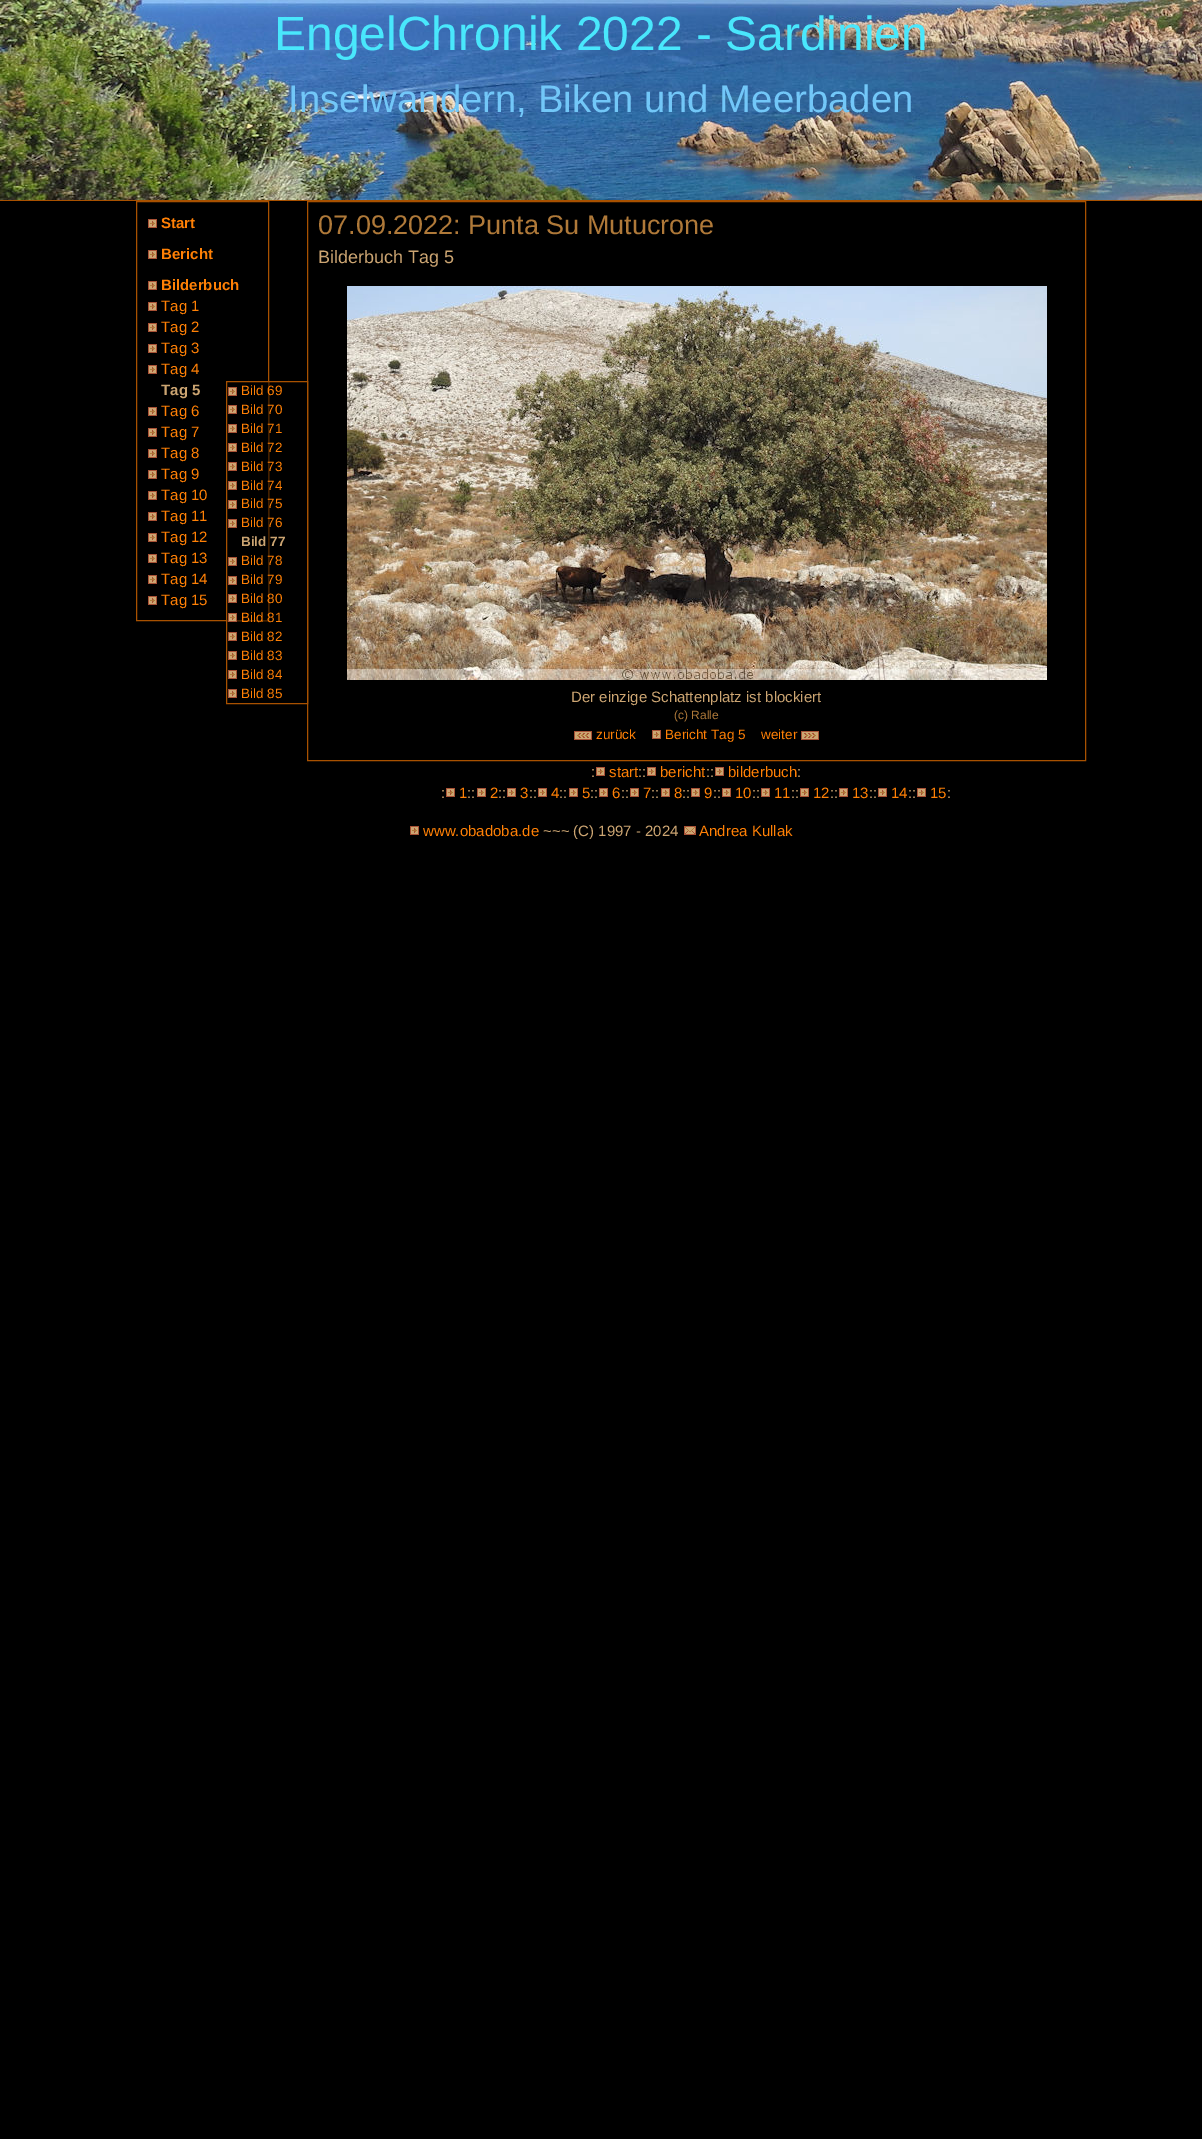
%!PS-Adobe-3.0
%%BoundingBox: 0 0 1202 2139
%%LanguageLevel: 3
%%Pages: 1
%%EndComments
%%BeginProlog
/fn { [ exch dup neg 0 0 3 -1 roll 0 0 ] selectfont } def
/tx { moveto show } def
/bx { rectfill } def
/al { dup .setfillconstantalpha .setstrokeconstantalpha } def
/im { 5 dict begin { /h /w /y /x /name } { exch def } forall
  gsave x y translate w h scale
  w h 8 [w 0 0 h 0 0] name (r) file false 3 colorimage grestore end } def
%%EndProlog
%%BeginSetup
<< /PageSize [1202 2139] /PageUsesTransparency true >> setpagedevice
%%EndSetup
%%Page: 1 1
0 .pushpdf14devicefilter
0 2139 translate 1 -1 scale
4 setmiterlimit
0 setgray
0 0 1202 2139 bx
(image0.raw) 0 0 1202 200 im
0.659 0.318 0 setrgbcolor
0 200 1202 1 bx
/LiberationSans-Regular 48 fn
0.286 0.906 0.988 setrgbcolor
(EngelChronik 2022 - Sardinien) 274 50 tx
/LiberationSans-Regular 38.4 fn
0.447 0.78 0.973 setrgbcolor
(Inselwandern, Biken und Meerbaden) 288 112 tx
0.659 0.318 0 setrgbcolor
136.5 201.5 132 419 rectstroke
(image1.raw) 148 219 9 9 im
/LiberationSans-Bold 15 fn
1 0.502 0.02 setrgbcolor
(Start) 161 228 tx
(image1.raw) 148 250 9 9 im
(Bericht) 161 259 tx
(image1.raw) 148 281 9 9 im
(Bilderbuch) 161 290 tx
(image1.raw) 148 302 9 9 im
/LiberationSans-Regular 15 fn
(Tag 1) 161 311 tx
(image1.raw) 148 323 9 9 im
(Tag 2) 161 332 tx
(image1.raw) 148 344 9 9 im
(Tag 3) 161 353 tx
(image1.raw) 148 365 9 9 im
(Tag 4) 161 374 tx
/LiberationSans-Bold 15 fn
0.8 0.647 0.447 setrgbcolor
(Tag 5) 161 395 tx
(image1.raw) 148 407 9 9 im
/LiberationSans-Regular 15 fn
1 0.502 0.02 setrgbcolor
(Tag 6) 161 416 tx
(image1.raw) 148 428 9 9 im
(Tag 7) 161 437 tx
(image1.raw) 148 449 9 9 im
(Tag 8) 161 458 tx
(image1.raw) 148 470 9 9 im
(Tag 9) 161 479 tx
(image1.raw) 148 491 9 9 im
(Tag 10) 161 500 tx
(image1.raw) 148 512 9 9 im
(Tag 11) 161 521 tx
(image1.raw) 148 533 9 9 im
(Tag 12) 161 542 tx
(image1.raw) 148 554 9 9 im
(Tag 13) 161 563 tx
(image1.raw) 148 575 9 9 im
(Tag 14) 161 584 tx
(image1.raw) 148 596 9 9 im
(Tag 15) 161 605 tx
0.6 al
0 setgray
227 382 42 239 bx
1 al
0.659 0.318 0 setrgbcolor
307.5 201.5 778 559 rectstroke
226.5 381.5 81 322 rectstroke
(image1.raw) 228 387 9 9 im
/LiberationSans-Regular 13.5 fn
1 0.502 0.02 setrgbcolor
(Bild 69) 241 395 tx
(image1.raw) 228 405 9 9 im
(Bild 70) 241 414 tx
(image1.raw) 228 424 9 9 im
(Bild 71) 241 433 tx
(image1.raw) 228 443 9 9 im
(Bild 72) 241 452 tx
(image1.raw) 228 462 9 9 im
(Bild 73) 241 471 tx
(image1.raw) 228 481 9 9 im
(Bild 74) 241 490 tx
(image1.raw) 228 500 9 9 im
(Bild 75) 241 508 tx
(image1.raw) 228 519 9 9 im
(Bild 76) 241 527 tx
/LiberationSans-Bold 13.5 fn
0.8 0.647 0.447 setrgbcolor
(Bild 77) 241 546 tx
(image1.raw) 228 557 9 9 im
/LiberationSans-Regular 13.5 fn
1 0.502 0.02 setrgbcolor
(Bild 78) 241 565 tx
(image1.raw) 228 576 9 9 im
(Bild 79) 241 584 tx
(image1.raw) 228 594 9 9 im
(Bild 80) 241 603 tx
(image1.raw) 228 613 9 9 im
(Bild 81) 241 622 tx
(image1.raw) 228 632 9 9 im
(Bild 82) 241 641 tx
(image1.raw) 228 651 9 9 im
(Bild 83) 241 660 tx
(image1.raw) 228 670 9 9 im
(Bild 84) 241 679 tx
(image1.raw) 228 689 9 9 im
(Bild 85) 241 698 tx
/LiberationSans-Regular 27 fn
0.686 0.475 0.224 setrgbcolor
(07.09.2022: Punta Su Mutucrone) 318 234 tx
/LiberationSans-Regular 18 fn
0.8 0.647 0.447 setrgbcolor
(Bilderbuch Tag 5) 318 263 tx
(image2.raw) 347 286 700 394 im
/LiberationSans-Regular 15 fn
(Der einzige Schattenplatz ist blockiert) 571 702 tx
/LiberationSans-Regular 12 fn
0.686 0.475 0.224 setrgbcolor
(\(c\) Ralle) 674 719 tx
(image3.raw) 574 731 18 9 im
/LiberationSans-Regular 13.5 fn
1 0.502 0.02 setrgbcolor
(zurück) 596 739 tx
(image1.raw) 652 730 9 9 im
(Bericht Tag 5) 665 739 tx
(weiter) 761 739 tx
(image4.raw) 801 731 18 9 im
/LiberationSans-Regular 15 fn
0.8 0.647 0.447 setrgbcolor
(:) 591 777 tx
(image1.raw) 596 767 9 9 im
1 0.502 0.02 setrgbcolor
(start) 609 777 tx
0.8 0.647 0.447 setrgbcolor
(::) 638 777 tx
(image1.raw) 647 767 9 9 im
1 0.502 0.02 setrgbcolor
(bericht) 660 777 tx
0.8 0.647 0.447 setrgbcolor
(::) 706 777 tx
(image1.raw) 715 767 9 9 im
1 0.502 0.02 setrgbcolor
(bilderbuch) 728 777 tx
0.8 0.647 0.447 setrgbcolor
(:) 797 777 tx
(:) 441 798 tx
(image1.raw) 446 788 9 9 im
1 0.502 0.02 setrgbcolor
(1) 459 798 tx
0.8 0.647 0.447 setrgbcolor
(::) 467 798 tx
(image1.raw) 477 788 9 9 im
1 0.502 0.02 setrgbcolor
(2) 490 798 tx
0.8 0.647 0.447 setrgbcolor
(::) 498 798 tx
(image1.raw) 507 788 9 9 im
1 0.502 0.02 setrgbcolor
(3) 520 798 tx
0.8 0.647 0.447 setrgbcolor
(::) 529 798 tx
(image1.raw) 538 788 9 9 im
1 0.502 0.02 setrgbcolor
(4) 551 798 tx
0.8 0.647 0.447 setrgbcolor
(::) 559 798 tx
(image1.raw) 569 788 9 9 im
1 0.502 0.02 setrgbcolor
(5) 582 798 tx
0.8 0.647 0.447 setrgbcolor
(::) 590 798 tx
(image1.raw) 599 788 9 9 im
1 0.502 0.02 setrgbcolor
(6) 612 798 tx
0.8 0.647 0.447 setrgbcolor
(::) 621 798 tx
(image1.raw) 630 788 9 9 im
1 0.502 0.02 setrgbcolor
(7) 643 798 tx
0.8 0.647 0.447 setrgbcolor
(::) 651 798 tx
(image1.raw) 661 788 9 9 im
1 0.502 0.02 setrgbcolor
(8) 674 798 tx
0.8 0.647 0.447 setrgbcolor
(::) 682 798 tx
(image1.raw) 691 788 9 9 im
1 0.502 0.02 setrgbcolor
(9) 704 798 tx
0.8 0.647 0.447 setrgbcolor
(::) 713 798 tx
(image1.raw) 722 788 9 9 im
1 0.502 0.02 setrgbcolor
(10) 735 798 tx
0.8 0.647 0.447 setrgbcolor
(::) 752 798 tx
(image1.raw) 761 788 9 9 im
1 0.502 0.02 setrgbcolor
(11) 774 798 tx
0.8 0.647 0.447 setrgbcolor
(::) 791 798 tx
(image1.raw) 800 788 9 9 im
1 0.502 0.02 setrgbcolor
(12) 813 798 tx
0.8 0.647 0.447 setrgbcolor
(::) 830 798 tx
(image1.raw) 839 788 9 9 im
1 0.502 0.02 setrgbcolor
(13) 852 798 tx
0.8 0.647 0.447 setrgbcolor
(::) 869 798 tx
(image1.raw) 878 788 9 9 im
1 0.502 0.02 setrgbcolor
(14) 891 798 tx
0.8 0.647 0.447 setrgbcolor
(::) 908 798 tx
(image1.raw) 917 788 9 9 im
1 0.502 0.02 setrgbcolor
(15) 930 798 tx
0.8 0.647 0.447 setrgbcolor
(:) 947 798 tx
(image1.raw) 410 826 9 9 im
1 0.502 0.02 setrgbcolor
(www.obadoba.de) 423 836 tx
0.8 0.647 0.447 setrgbcolor
(~~~ \(C\) 1997 - 2024) 543 836 tx
(image5.raw) 684 826 12 9 im
1 0.502 0.02 setrgbcolor
(Andrea Kullak) 699 836 tx
.poppdf14devicefilter showpage
%%EOF
